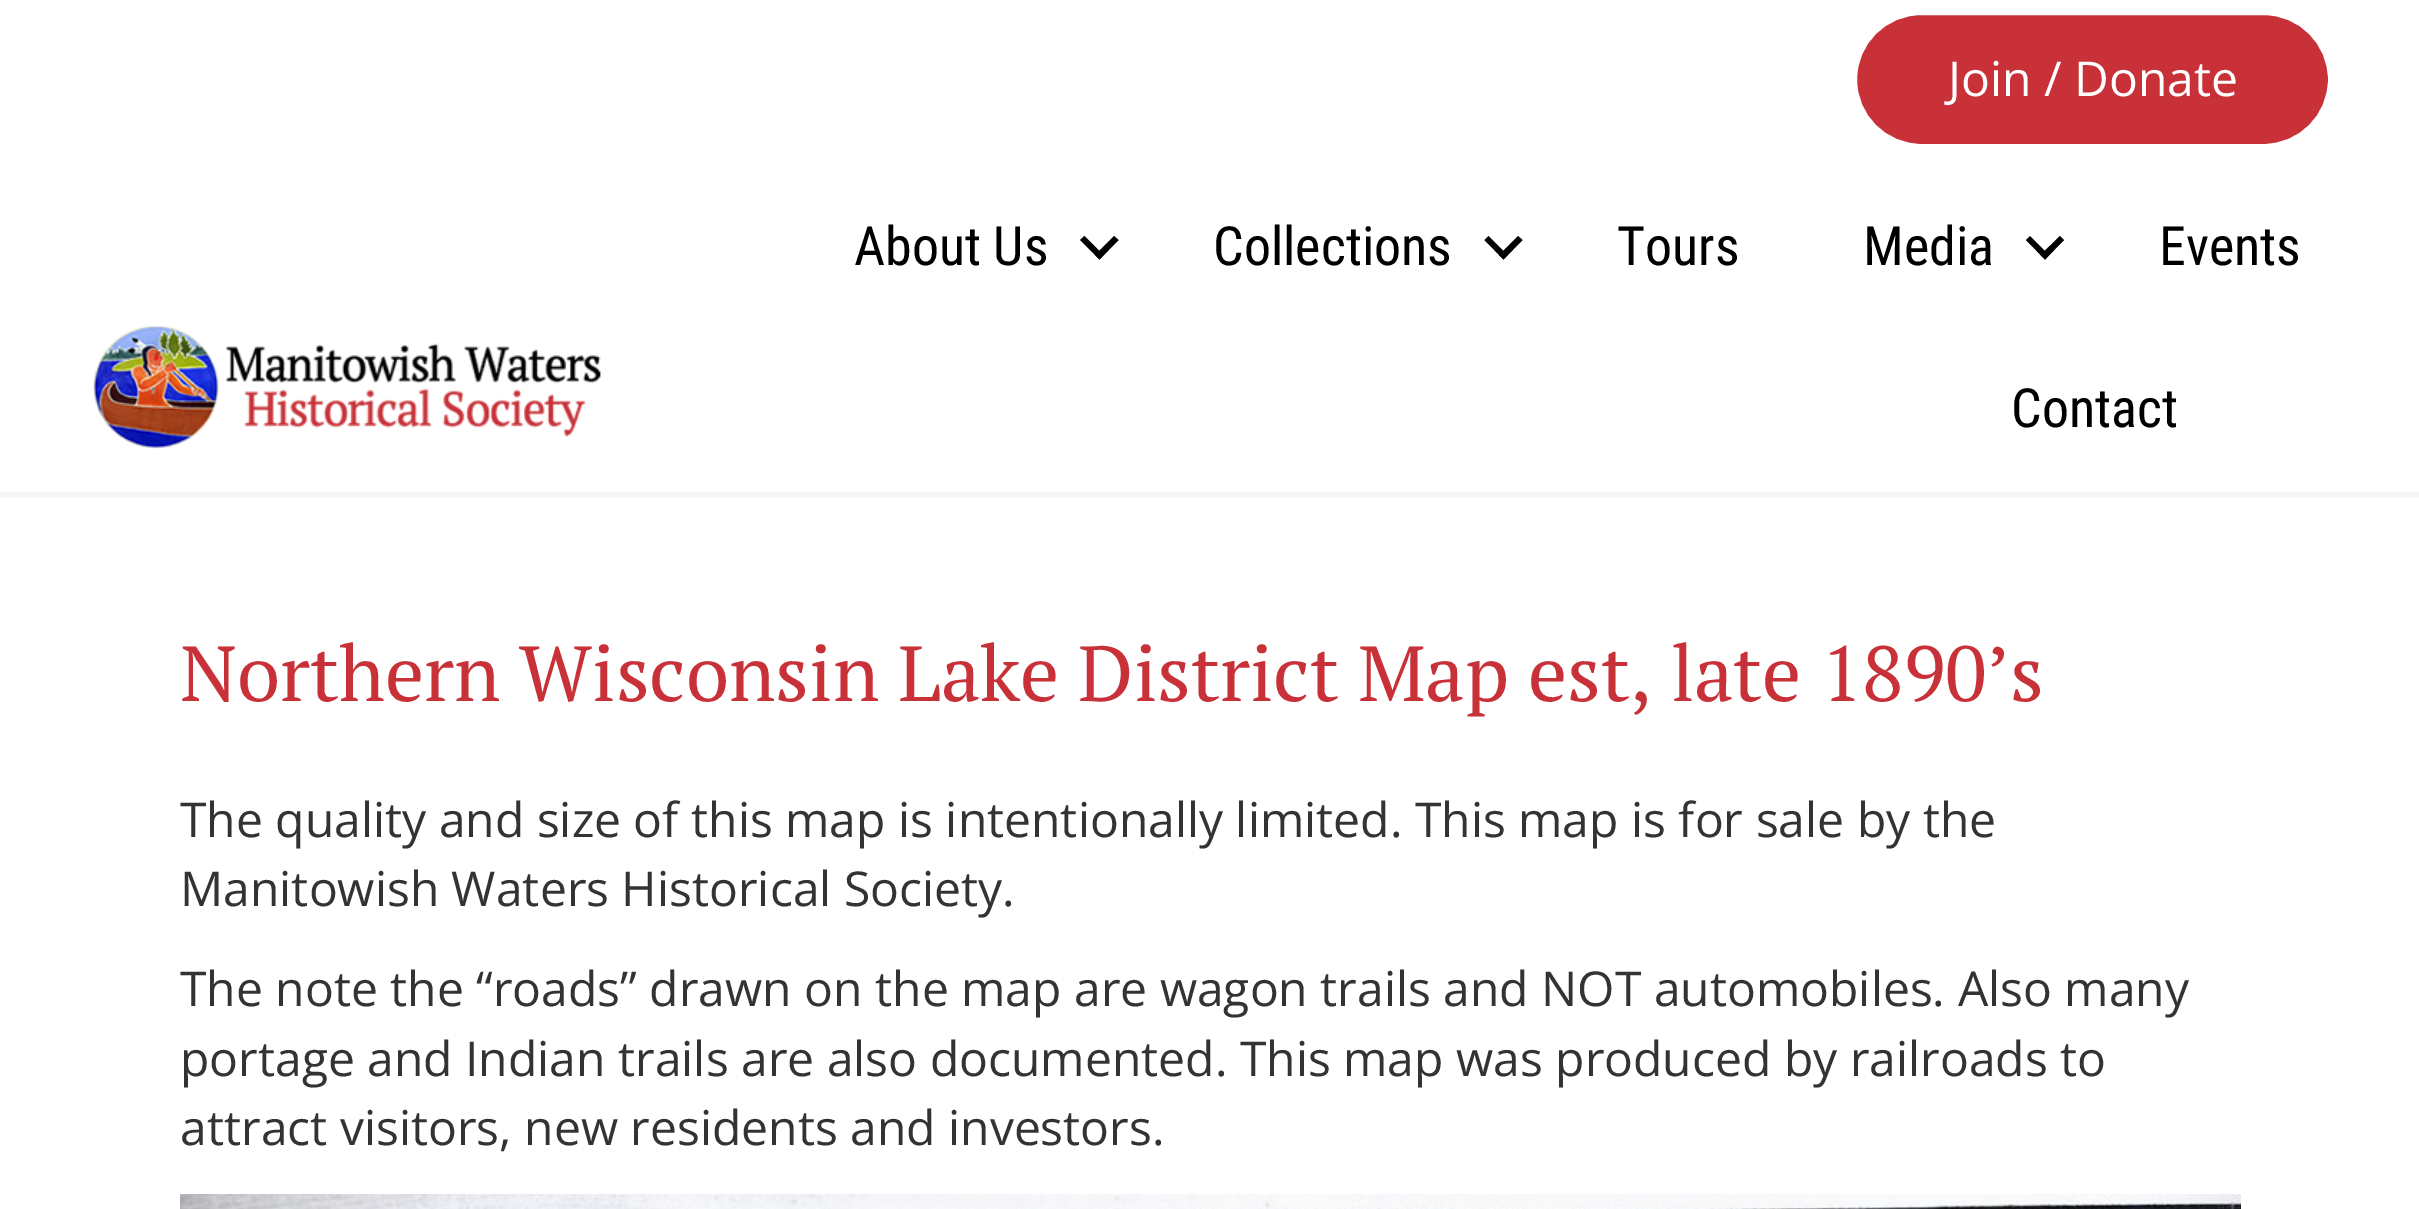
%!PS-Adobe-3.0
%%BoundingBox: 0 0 2419 1209
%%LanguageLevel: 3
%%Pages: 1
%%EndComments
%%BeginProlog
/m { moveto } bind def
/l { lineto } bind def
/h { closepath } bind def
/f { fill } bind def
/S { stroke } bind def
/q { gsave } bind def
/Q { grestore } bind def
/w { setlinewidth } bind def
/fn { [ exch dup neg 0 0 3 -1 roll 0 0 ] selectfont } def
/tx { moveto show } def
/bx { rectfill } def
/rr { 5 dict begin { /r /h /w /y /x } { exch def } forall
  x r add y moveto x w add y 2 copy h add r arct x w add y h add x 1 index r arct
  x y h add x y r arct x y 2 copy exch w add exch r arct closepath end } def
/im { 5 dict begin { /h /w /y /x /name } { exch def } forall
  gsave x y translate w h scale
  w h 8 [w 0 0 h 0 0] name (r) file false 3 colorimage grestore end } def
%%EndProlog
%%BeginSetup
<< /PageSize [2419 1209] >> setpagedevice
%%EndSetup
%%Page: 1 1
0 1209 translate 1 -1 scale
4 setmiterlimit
1 setgray
0 0 2419 1209 bx
0.965 setgray
0 492 2419 6 bx
(image0.raw) 92 326 509 124 im
0.784 0.192 0.22 setrgbcolor
1855.5 13.5 474 132 66 rr q f Q
1 setgray
3 w
S
/OpenSans-Regular 48 fn
(Join / Donate) 1948 96 tx
/RobotoCondensed-Regular 54 fn
0 setgray
(About Us) 854 265 tx
1114 236 m 1118.5 240 l 1099.5 259.5 l 1095 255 l h f
1084.5 236 m 1103.5 255 l 1099.5 259.5 l 1080 240 l h f
(Collections) 1213 265 tx
1518 236 m 1522.5 240 l 1503.5 259.5 l 1499 255 l h f
1488.5 236 m 1507.5 255 l 1503.5 259.5 l 1484.5 240 l h f
(Tours) 1617 265 tx
(Media) 1863 265 tx
2060 236 m 2064 240 l 2045 259.5 l 2040.5 255 l h f
2030 236 m 2049 255 l 2045 259.5 l 2026 240 l h f
(Events) 2159 265 tx
(Contact) 2011 427 tx
/PTSerif-Regular 78 fn
0.784 0.192 0.22 setrgbcolor
(Northern Wisconsin Lake District Map est, late 1890’s) 180 701 tx
/OpenSans-Regular 48 fn
0.2 setgray
(The quality and size of this map is intentionally limited. This map is for sale by the) 180 837 tx
(Manitowish Waters Historical Society.) 180 906 tx
(The note the “roads” drawn on the map are wagon trails and NOT automobiles. Also many) 180 1006 tx
(portage and Indian trails are also documented. This map was produced by railroads to) 180 1076 tx
(attract visitors, new residents and investors.) 180 1145 tx
(image1.raw) 180 1194 2061 15 im
showpage
%%EOF
